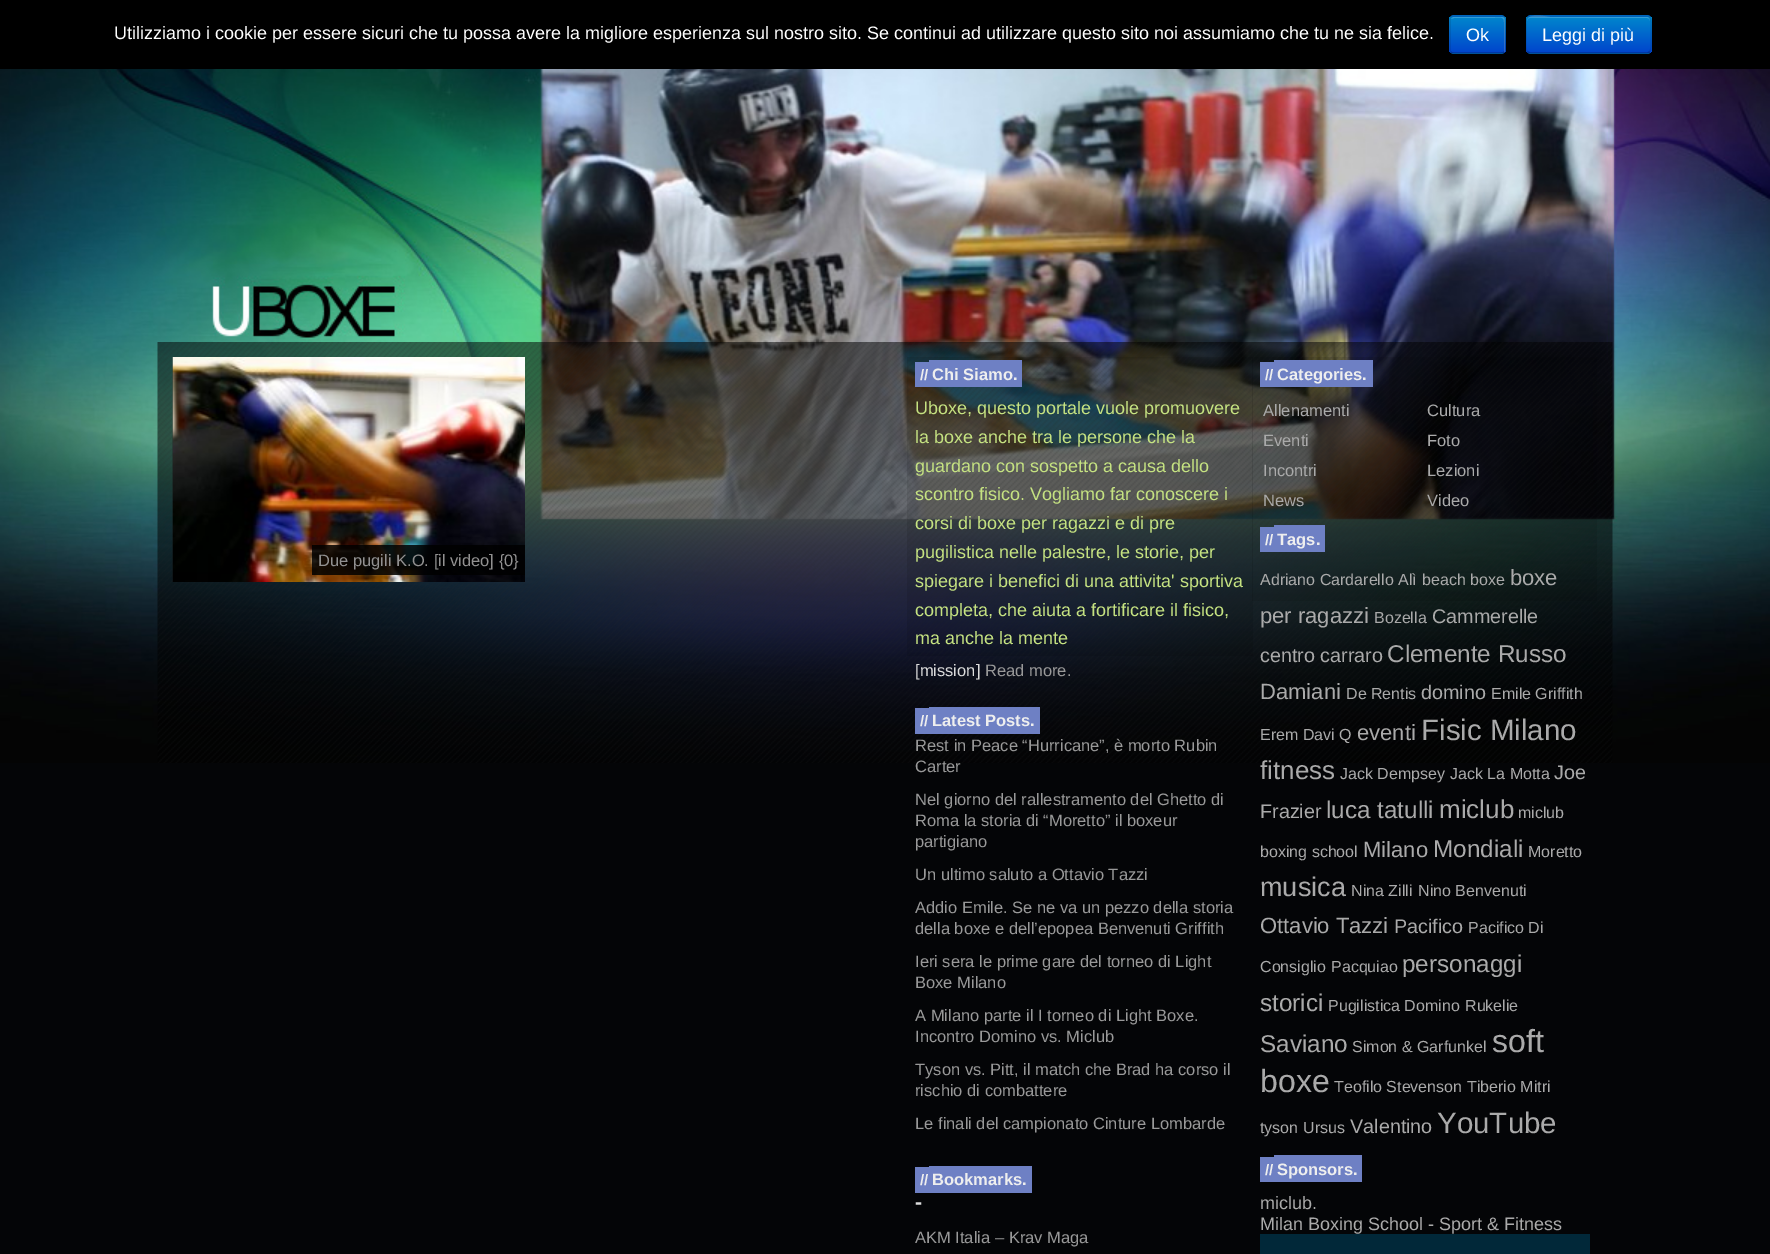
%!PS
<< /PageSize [1770 1254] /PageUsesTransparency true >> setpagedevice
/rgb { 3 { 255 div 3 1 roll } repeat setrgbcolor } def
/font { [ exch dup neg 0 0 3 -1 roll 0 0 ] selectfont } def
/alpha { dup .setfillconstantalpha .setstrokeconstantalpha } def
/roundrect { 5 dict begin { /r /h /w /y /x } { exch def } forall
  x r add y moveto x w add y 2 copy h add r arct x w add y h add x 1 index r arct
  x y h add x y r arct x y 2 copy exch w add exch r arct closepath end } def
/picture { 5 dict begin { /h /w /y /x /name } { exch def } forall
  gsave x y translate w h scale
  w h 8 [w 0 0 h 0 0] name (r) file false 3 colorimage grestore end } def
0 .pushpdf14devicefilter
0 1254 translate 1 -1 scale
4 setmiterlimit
4 5 7 rgb
0 0 1770 1254 rectfill
(img/1.rgb) 0 69 1770 694 picture
0 0 0 rgb
0 0 1770 69 rectfill
0 109 204 rgb
1449 15 57 39 5 roundrect fill
gsave
1449 15 57 39 5 roundrect clip newpath
gsave 1449 17 moveto 1506 17 lineto 1506 53 lineto 1449 53 lineto closepath clip newpath
<< /ShadingType 2 /ColorSpace /DeviceRGB /Coords [1478 16 1478 53] /Extend [true true] /Function << /FunctionType 2 /Domain [0 1] /C0 [0 0.533 0.8] /C1 [0 0.267 0.8] /N 1 >> >> shfill grestore
grestore
0.2 alpha
255 255 255 rgb
1454 18 moveto 1486 18 lineto 1506 18 1504 14 1504 31 curveto 1504 52 lineto 1505 52 1505 51 1505 50 curveto 1505 20 lineto 1505 18 1504 17 1502 17 curveto 1454 17 lineto 1453 17 1452 18 1451 19 curveto closepath fill
0.25 alpha
0 0 0 rgb
1.5 setlinewidth
1504 52 moveto 1503.5 53 1502.5 53 1501.5 53 curveto 1453.5 53 lineto 1452.5 53 1451.5 53 1451 52 curveto stroke
0.1 alpha
1451 52 moveto 1450 51.5 1450 50.5 1450 49.5 curveto 1450 19.5 lineto 1450 18.5 1450 17.5 1451 17 curveto 1451.5 16 1452.5 16 1453.5 16 curveto 1501.5 16 lineto 1502.5 16 1503.5 16 1504 17 curveto 1505 17.5 1505 18.5 1505 19.5 curveto 1505 49.5 lineto 1505 50.5 1505 51.5 1504 52 curveto stroke
1 alpha
0 109 204 rgb
1526 15 126 39 5 roundrect fill
gsave
1526 15 126 39 5 roundrect clip newpath
gsave 1526 17 moveto 1652 17 lineto 1652 53 lineto 1526 53 lineto closepath clip newpath
<< /ShadingType 2 /ColorSpace /DeviceRGB /Coords [1589 16 1589 53] /Extend [true true] /Function << /FunctionType 2 /Domain [0 1] /C0 [0 0.533 0.8] /C1 [0 0.267 0.8] /N 1 >> >> shfill grestore
grestore
0.2 alpha
255 255 255 rgb
1530 18 moveto 1647 18 lineto 1649 18 1650 19 1650 21 curveto 1650 19 1649 17 1647 17 curveto 1550 17 lineto 1549 17 1527 12 1527 21 curveto 1527 19 1528 18 1530 18 curveto closepath fill
0.25 alpha
0 0 0 rgb
1649.5 52 moveto 1647.5 53 lineto 1549.5 53 lineto 1530 53 lineto 1527.5 52 lineto stroke
0.1 alpha
1527.5 52 moveto 1525 49.5 1526 42 1526 39.5 curveto 1526 24.5 lineto 1526 21.5 1525.5 16 1530 16 curveto 1647 16 lineto 1651.5 16 1651 21.5 1651 24.5 curveto 1651 39.5 lineto 1651 42 1652 49.5 1649.5 52 curveto stroke
1 alpha
(img/2.rgb) 157 342 1456 421 picture
(img/3.rgb) 172 357 1 225 picture
(img/4.rgb) 172 357 353 225 picture
0.85 alpha
[
  [312 545 213 30 0 0 0]
] { aload pop rgb rectfill } forall
0.1 alpha
[
  [907 357 346 299 0 0 0]
] { aload pop rgb rectfill } forall
1 alpha
[
  [915 362 14 25 110 128 196]
  [929 360 93 27 110 128 196]
  [915 708 14 26 110 128 196]
  [929 707 111 27 110 128 196]
  [915 1167 14 26 110 128 196]
  [929 1166 103 27 110 128 196]
] { aload pop rgb rectfill } forall
0.1 alpha
[
  [1252 357 345 244 0 0 0]
] { aload pop rgb rectfill } forall
1 alpha
[
  [1260 362 14 25 110 128 196]
  [1274 360 99 27 110 128 196]
  [1260 527 14 25 110 128 196]
  [1274 525 51 27 110 128 196]
  [1260 1157 14 25 110 128 196]
  [1274 1155 88 27 110 128 196]
  [1260 1234 330 20 1 40 57]
] { aload pop rgb rectfill } forall
/LiberationSans-Regular 18 font
255 255 255 rgb
[
  [(Utilizziamo i cookie per essere sicuri che tu possa avere la migliore esperienza sul nostro sito. Se continui ad utilizzare questo sito noi assumiamo che tu ne sia felice.) 114 39]
  [(Ok) 1466 41]
  [(Leggi di più) 1542 41]
] { aload pop moveto show } forall
/LiberationSans-Regular 16.5 font
146 145 145 rgb
318 566 moveto (Due pugili K.O. [il video] {0}) show
/LiberationSans-Bold 15 font
238 238 238 rgb
920 380 moveto (//) show
/LiberationSans-Bold 16.5 font
932 380 moveto (Chi Siamo.) show
/LiberationSans-Regular 18 font
197 226 129 rgb
[
  [(Uboxe, questo portale vuole promuovere) 915 414]
  [(la boxe anche tra le persone che la) 915 443]
  [(guardano con sospetto a causa dello) 915 472]
  [(scontro fisico. Vogliamo far conoscere i) 915 500]
  [(corsi di boxe per ragazzi e di pre) 915 529]
  [(pugilistica nelle palestre, le storie, per) 915 558]
  [(spiegare i benefici di una attivita' sportiva) 915 587]
  [(completa, che aiuta a fortificare il fisico,) 915 616]
  [(ma anche la mente) 915 644]
] { aload pop moveto show } forall
/LiberationSans-Regular 16.5 font
221 221 221 rgb
915 676 moveto ([mission]) show
153 153 153 rgb
985 676 moveto (Read more.) show
/LiberationSans-Bold 15 font
238 238 238 rgb
920 726 moveto (//) show
/LiberationSans-Bold 16.5 font
932 726 moveto (Latest Posts.) show
/LiberationSans-Regular 16.5 font
153 153 153 rgb
[
  [(Rest in Peace “Hurricane”, è morto Rubin) 915 751]
  [(Carter) 915 772]
  [(Nel giorno del rallestramento del Ghetto di) 915 805]
  [(Roma la storia di “Moretto” il boxeur) 915 826]
  [(partigiano) 915 847]
  [(Un ultimo saluto a Ottavio Tazzi) 915 880]
  [(Addio Emile. Se ne va un pezzo della storia) 915 913]
  [(della boxe e dell’epopea Benvenuti Griffith) 915 934]
  [(Ieri sera le prime gare del torneo di Light) 915 967]
  [(Boxe Milano) 915 988]
  [(A Milano parte il I torneo di Light Boxe.) 915 1021]
  [(Incontro Domino vs. Miclub) 915 1042]
  [(Tyson vs. Pitt, il match che Brad ha corso il) 915 1075]
  [(rischio di combattere) 915 1096]
  [(Le finali del campionato Cinture Lombarde) 915 1129]
] { aload pop moveto show } forall
/LiberationSans-Bold 15 font
238 238 238 rgb
920 1185 moveto (//) show
/LiberationSans-Bold 16.5 font
932 1185 moveto (Bookmarks.) show
/LiberationSans-Bold 21 font
221 221 221 rgb
915 1209 moveto (-) show
/LiberationSans-Regular 16.5 font
153 153 153 rgb
915 1243 moveto (AKM Italia – Krav Maga) show
/LiberationSans-Bold 15 font
238 238 238 rgb
1265 380 moveto (//) show
/LiberationSans-Bold 16.5 font
1277 380 moveto (Categories.) show
/LiberationSans-Regular 16.5 font
170 170 170 rgb
[
  [(Allenamenti) 1263 416]
  [(Cultura) 1427 416]
  [(Eventi) 1263 446]
  [(Foto) 1427 446]
  [(Incontri) 1263 476]
  [(Lezioni) 1427 476]
  [(News) 1263 506]
  [(Video) 1427 506]
] { aload pop moveto show } forall
/LiberationSans-Bold 15 font
238 238 238 rgb
1265 545 moveto (//) show
/LiberationSans-Bold 16.5 font
1277 545 moveto (Tags.) show
/LiberationSans-Regular 16 font
170 170 170 rgb
[
  [(Adriano Cardarello) 1260 585]
  [(Alì) 1398 585]
  [(beach boxe) 1422 585]
] { aload pop moveto show } forall
/LiberationSans-Regular 22 font
1510 585 moveto (boxe) show
1260 623 moveto (per ragazzi) show
/LiberationSans-Regular 16 font
1374 623 moveto (Bozella) show
/LiberationSans-Regular 19.75 font
1432 623 moveto (Cammerelle) show
1260 662 moveto (centro carraro) show
/LiberationSans-Regular 24.25 font
1387 662 moveto (Clemente Russo) show
/LiberationSans-Regular 22 font
1260 699 moveto (Damiani) show
/LiberationSans-Regular 16 font
1346 699 moveto (De Rentis) show
/LiberationSans-Regular 19.75 font
1421 699 moveto (domino) show
/LiberationSans-Regular 16 font
1491 699 moveto (Emile Griffith) show
1260 740 moveto (Erem Davi Q) show
/LiberationSans-Regular 22 font
1357 740 moveto (eventi) show
/LiberationSans-Regular 29.5 font
1421 740 moveto (Fisic Milano) show
/LiberationSans-Regular 26 font
1260 779 moveto (fitness) show
/LiberationSans-Regular 16 font
1340 779 moveto (Jack Dempsey) show
1450 779 moveto (Jack La Motta) show
/LiberationSans-Regular 19.75 font
1554 779 moveto (Joe) show
1260 818 moveto (Frazier) show
/LiberationSans-Regular 24.25 font
1326 818 moveto (luca tatulli) show
/LiberationSans-Regular 26 font
1439 818 moveto (miclub) show
/LiberationSans-Regular 16 font
1518 818 moveto (miclub) show
1260 857 moveto (boxing school) show
/LiberationSans-Regular 22 font
1363 857 moveto (Milano) show
/LiberationSans-Regular 24.25 font
1433 857 moveto (Mondiali) show
/LiberationSans-Regular 16 font
1528 857 moveto (Moretto) show
/LiberationSans-Regular 27 font
1260 896 moveto (musica) show
/LiberationSans-Regular 16 font
1351 896 moveto (Nina Zilli) show
1418 896 moveto (Nino Benvenuti) show
/LiberationSans-Regular 22 font
1260 933 moveto (Ottavio Tazzi) show
/LiberationSans-Regular 19.75 font
1394 933 moveto (Pacifico) show
/LiberationSans-Regular 16 font
[
  [(Pacifico Di) 1468 933]
  [(Consiglio) 1260 972]
  [(Pacquiao) 1331 972]
] { aload pop moveto show } forall
/LiberationSans-Regular 24.25 font
1402 972 moveto (personaggi) show
1260 1011 moveto (storici) show
/LiberationSans-Regular 16 font
1328 1011 moveto (Pugilistica Domino) show
1465 1011 moveto (Rukelie) show
/LiberationSans-Regular 24.25 font
1260 1052 moveto (Saviano) show
/LiberationSans-Regular 16 font
1352 1052 moveto (Simon & Garfunkel) show
/LiberationSans-Regular 32 font
1492 1052 moveto (soft) show
1260 1092 moveto (boxe) show
/LiberationSans-Regular 16 font
[
  [(Teofilo Stevenson) 1334 1092]
  [(Tiberio Mitri) 1467 1092]
  [(tyson) 1260 1133]
  [(Ursus) 1303 1133]
] { aload pop moveto show } forall
/LiberationSans-Regular 19.75 font
1350 1133 moveto (Valentino) show
/LiberationSans-Regular 29.5 font
1437 1133 moveto (YouTube) show
/LiberationSans-Bold 15 font
238 238 238 rgb
1265 1175 moveto (//) show
/LiberationSans-Bold 16.5 font
1277 1175 moveto (Sponsors.) show
/LiberationSans-Regular 18 font
170 170 170 rgb
1260 1209 moveto (miclub.) show
1260 1230 moveto (Milan Boxing School - Sport & Fitness) show
.poppdf14devicefilter showpage
